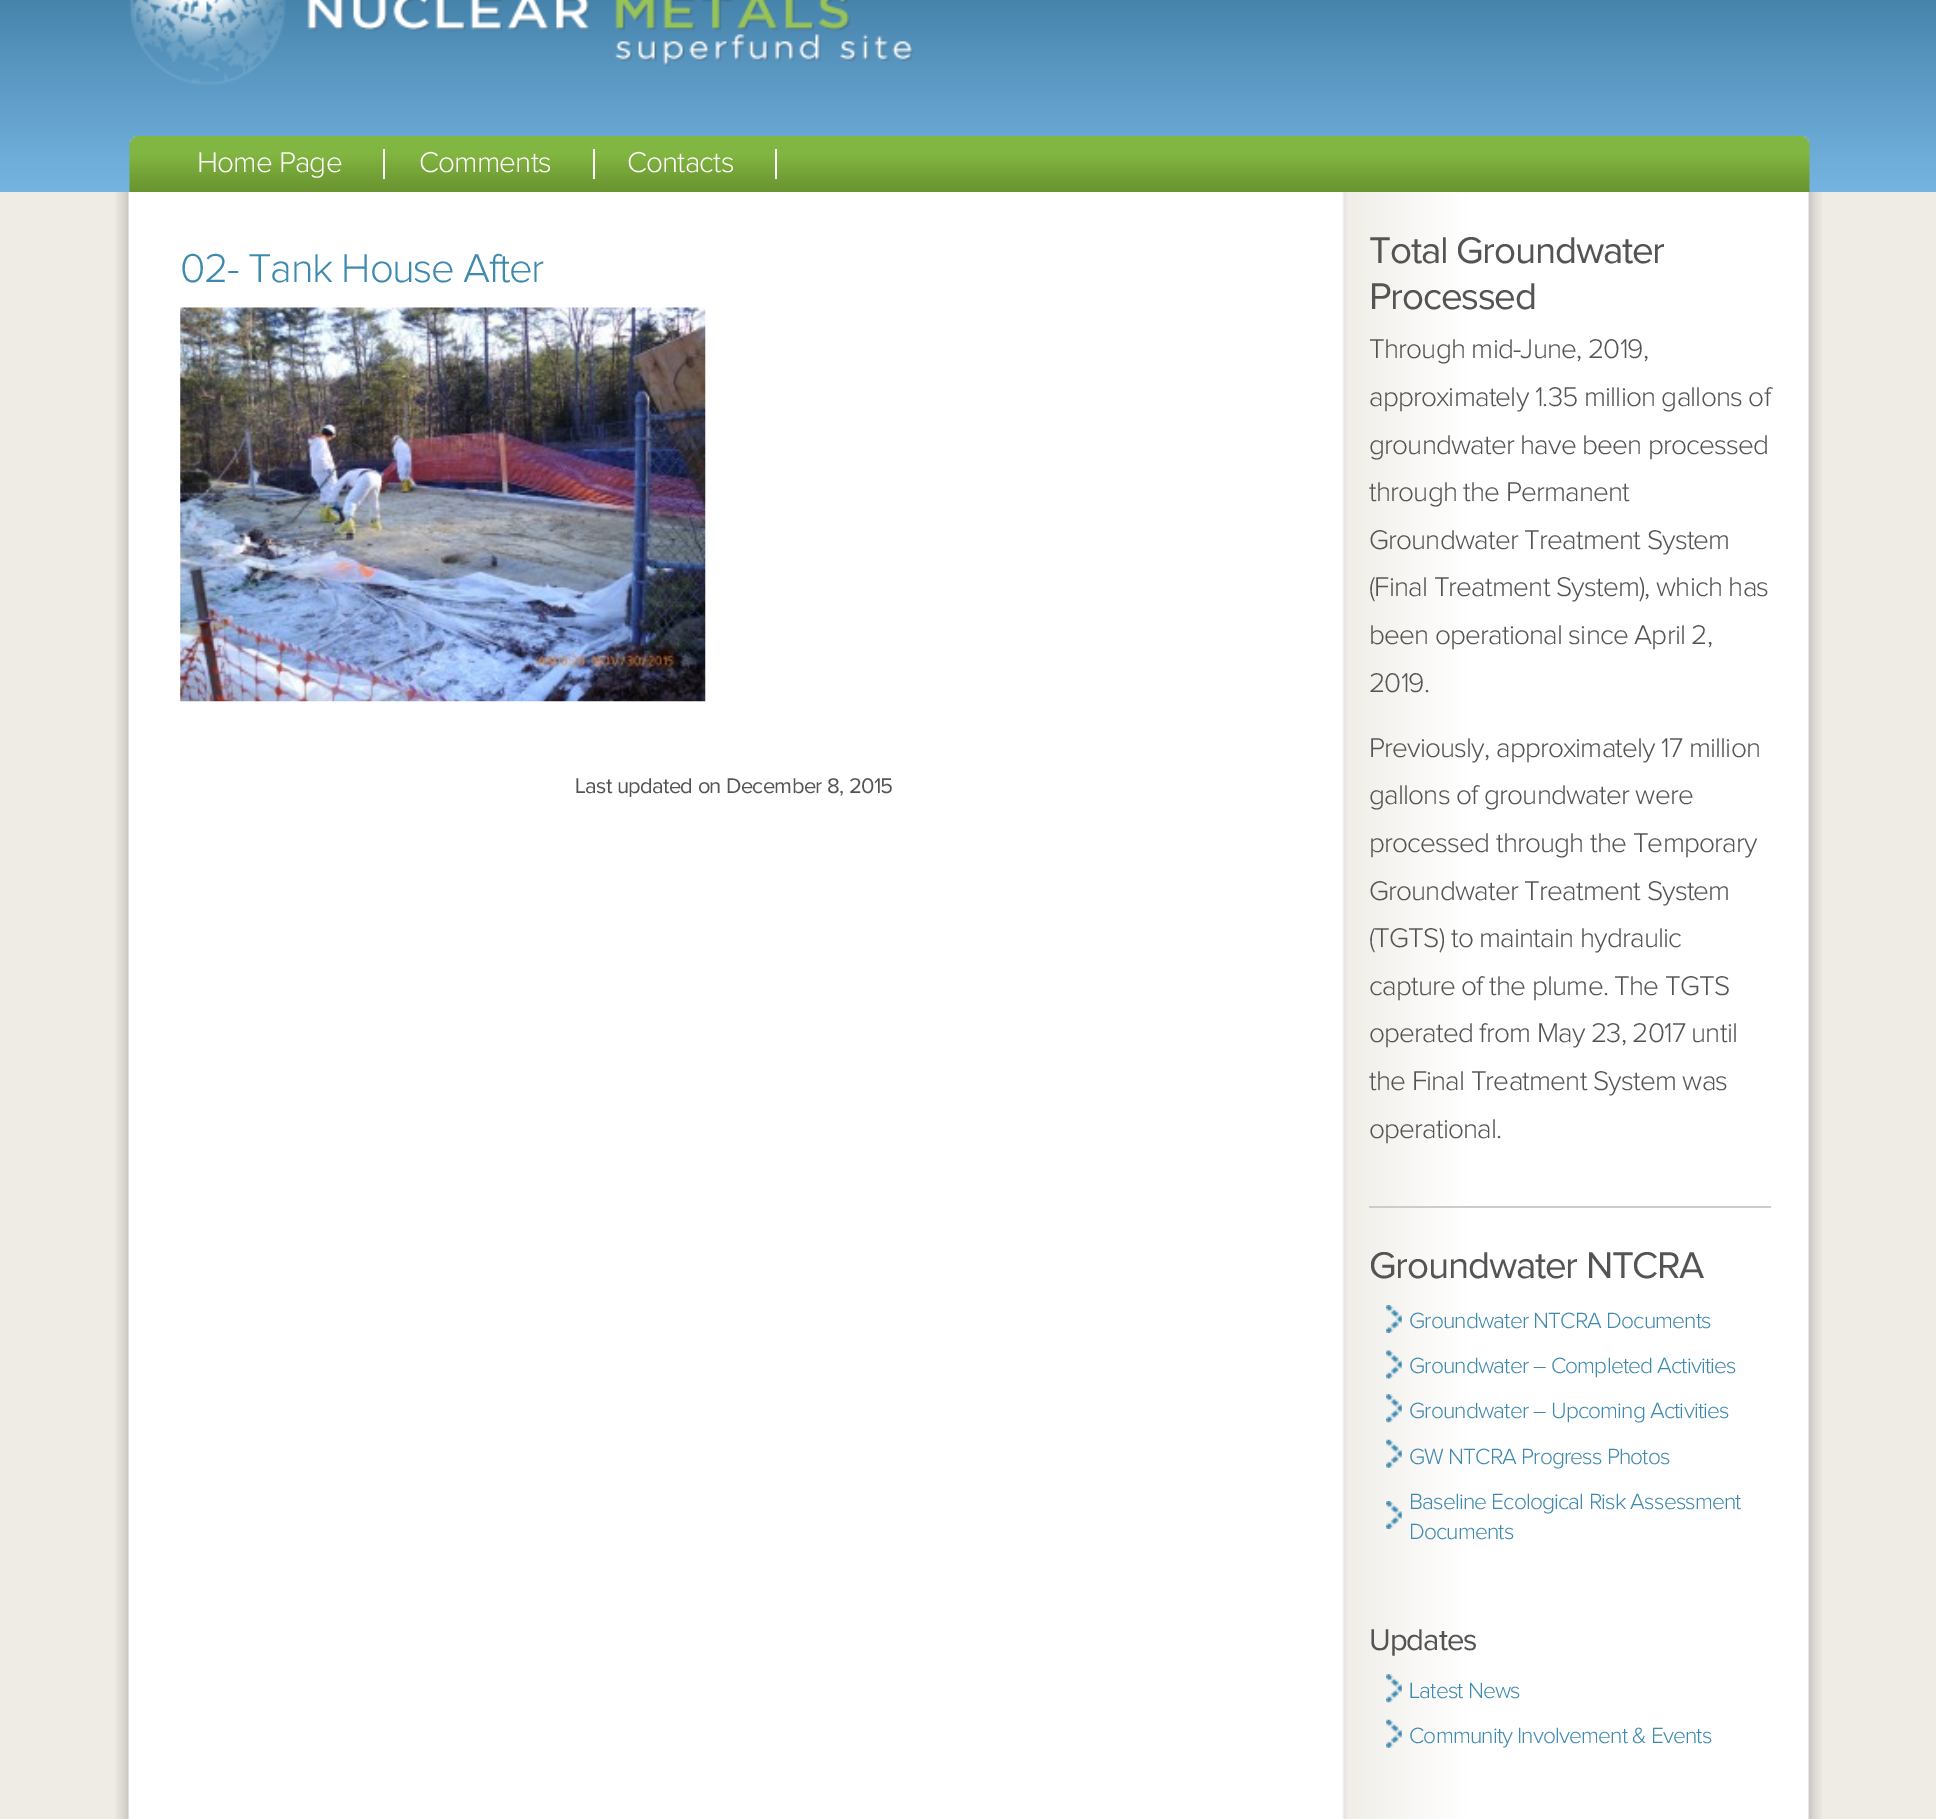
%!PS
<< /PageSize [1936 1819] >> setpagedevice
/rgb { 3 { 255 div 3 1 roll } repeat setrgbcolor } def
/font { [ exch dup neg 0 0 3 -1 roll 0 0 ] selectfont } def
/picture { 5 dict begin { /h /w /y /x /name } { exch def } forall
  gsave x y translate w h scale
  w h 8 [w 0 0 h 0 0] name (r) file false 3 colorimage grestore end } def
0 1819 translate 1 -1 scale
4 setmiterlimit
239 236 230 rgb
0 0 1936 1819 rectfill
(img/1.rgb) 0 0 1936 192 picture
(img/2.rgb) 129 0 785 85 picture
(img/3.rgb) 129 136 1681 56 picture
[
  [383 149 2 30 255 255 255]
  [593 149 2 30 255 255 255]
  [775 149 2 30 255 255 255]
] { aload pop rgb rectfill } forall
(img/4.rgb) 115 192 1707 1627 picture
(img/5.rgb) 180 307 526 395 picture
204 204 204 rgb
1369 1206 402 2 rectfill
(img/6.rgb) 1386 1305 16 28 picture
(img/7.rgb) 1386 1350 16 29 picture
(img/8.rgb) 1386 1394 16 29 picture
(img/9.rgb) 1386 1439 16 29 picture
(img/6.rgb) 1386 1501 16 28 picture
(img/10.rgb) 1386 1674 16 29 picture
(img/9.rgb) 1386 1719 16 29 picture
/ProximaNova-Light 29.75 font
255 255 255 rgb
197 172 moveto -0.85 0 (Home Page) ashow
419 172 moveto -0.85 0 (Comments) ashow
627 172 moveto -0.85 0 (Contacts) ashow
/ProximaNova-Light 41.75 font
62 137 175 rgb
180 282 moveto -1.25 0 (02- Tank House After) ashow
/ProximaNova-Regular 22 font
84 84 84 rgb
575 793 moveto -0.65 0 (Last updated on December 8, 2015) ashow
/ProximaNova-Regular 38.5 font
1369 263 moveto -1.2 0 (Total Groundwater) ashow
1369 309 moveto -1.2 0 (Processed) ashow
/ProximaNova-Light 28 font
1369 358 moveto -0.85 0 (Through mid-June, 2019,) ashow
1369 406 moveto -0.85 0 (approximately 1.35 million gallons of) ashow
1369 454 moveto -0.85 0 (groundwater have been processed) ashow
1369 501 moveto -0.85 0 (through the Permanent) ashow
1369 549 moveto -0.85 0 (Groundwater Treatment System) ashow
1369 596 moveto -0.85 0 (\(Final Treatment System\), which has) ashow
1369 644 moveto -0.85 0 (been operational since April 2,) ashow
1369 692 moveto -0.85 0 (2019.) ashow
1369 757 moveto -0.85 0 (Previously, approximately 17 million) ashow
1369 804 moveto -0.85 0 (gallons of groundwater were) ashow
1369 852 moveto -0.85 0 (processed through the Temporary) ashow
1369 900 moveto -0.85 0 (Groundwater Treatment System) ashow
1369 947 moveto -0.85 0 (\(TGTS\) to maintain hydraulic) ashow
1369 995 moveto -0.85 0 (capture of the plume. The TGTS) ashow
1369 1042 moveto -0.85 0 (operated from May 23, 2017 until) ashow
1369 1090 moveto -0.85 0 (the Final Treatment System was) ashow
1369 1138 moveto -0.85 0 (operational.) ashow
/ProximaNova-Regular 38.5 font
1369 1278 moveto -1.2 0 (Groundwater NTCRA) ashow
/ProximaNova-Light 22.75 font
62 137 175 rgb
1409 1328 moveto -0.85 0 (Groundwater NTCRA Documents) ashow
1409 1373 moveto -0.85 0 (Groundwater – Completed Activities) ashow
1409 1418 moveto -0.85 0 (Groundwater – Upcoming Activities) ashow
1409 1464 moveto -0.85 0 (GW NTCRA Progress Photos) ashow
1409 1509 moveto -0.85 0 (Baseline Ecological Risk Assessment) ashow
1409 1539 moveto -0.85 0 (Documents) ashow
/ProximaNova-Regular 31 font
84 84 84 rgb
1369 1650 moveto -1 0 (Updates) ashow
/ProximaNova-Light 22.75 font
62 137 175 rgb
1409 1698 moveto -0.85 0 (Latest News) ashow
1409 1743 moveto -0.85 0 (Community Involvement & Events) ashow
showpage
